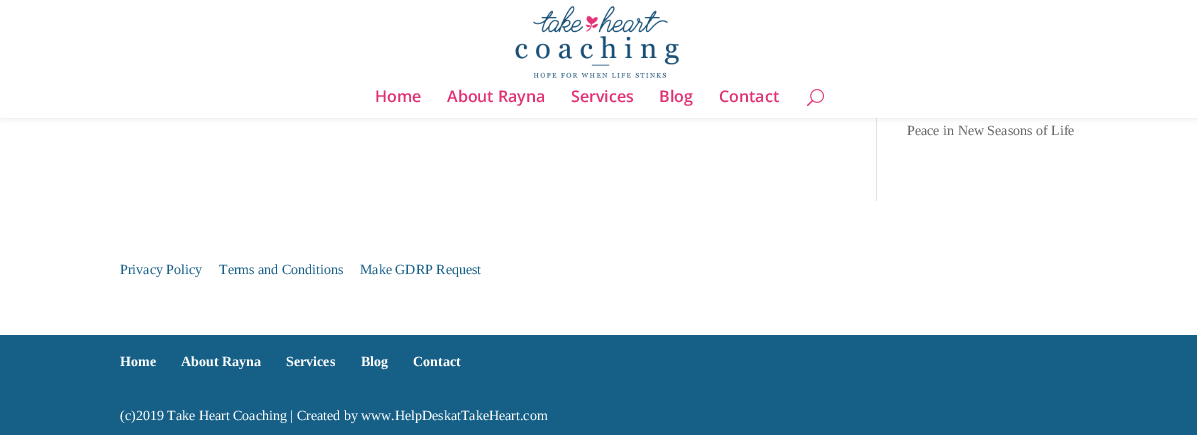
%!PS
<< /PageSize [1197 435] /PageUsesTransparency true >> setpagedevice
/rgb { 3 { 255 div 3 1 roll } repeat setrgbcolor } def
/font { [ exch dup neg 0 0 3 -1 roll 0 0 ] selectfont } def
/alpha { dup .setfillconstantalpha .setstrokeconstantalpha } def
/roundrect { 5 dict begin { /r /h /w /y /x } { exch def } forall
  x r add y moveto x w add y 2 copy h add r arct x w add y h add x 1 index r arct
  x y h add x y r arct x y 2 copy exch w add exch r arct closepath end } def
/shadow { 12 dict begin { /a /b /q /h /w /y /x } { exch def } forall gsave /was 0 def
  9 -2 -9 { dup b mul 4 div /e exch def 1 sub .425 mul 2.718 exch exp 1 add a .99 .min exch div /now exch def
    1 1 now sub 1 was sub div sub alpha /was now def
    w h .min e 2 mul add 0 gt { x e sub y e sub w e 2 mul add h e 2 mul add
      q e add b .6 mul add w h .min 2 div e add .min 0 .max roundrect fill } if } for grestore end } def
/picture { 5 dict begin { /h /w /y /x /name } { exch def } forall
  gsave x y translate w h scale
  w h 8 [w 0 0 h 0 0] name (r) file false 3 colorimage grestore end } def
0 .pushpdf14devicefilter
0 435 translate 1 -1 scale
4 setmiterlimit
255 255 255 rgb
0 0 1197 435 rectfill
226 226 226 rgb
876 118 1 83 rectfill
0 0 0 rgb
0 0 1197 118 0 3.5 0.1 shadow
255 255 255 rgb
0 0 1197 118 rectfill
(img/1.rgb) 515 5 164 73 picture
(img/2.rgb) 807 89 17 18 picture
22 96 136 rgb
0 335 1197 100 rectfill
/OpenSans-SemiBold 16 font
225 49 117 rgb
[
  [(Home) 375 102]
  [(About Rayna) 447 102]
  [(Services) 571 102]
  [(Blog) 659 102]
  [(Contact) 719 102]
] { aload pop moveto show } forall
/LiberationSerif-Regular 14 font
102 102 102 rgb
907 135 moveto (Peace in New Seasons of Life) show
22 96 136 rgb
[
  [(Privacy Policy) 120 274]
  [(Terms and Conditions) 219 274]
  [(Make GDRP Request) 360 274]
] { aload pop moveto show } forall
/LiberationSerif-Bold 14 font
255 255 255 rgb
[
  [(Home) 120 366]
  [(About Rayna) 181 366]
  [(Services) 286 366]
  [(Blog) 361 366]
  [(Contact) 413 366]
] { aload pop moveto show } forall
/LiberationSerif-Regular 14 font
120 420 moveto (\(c\)2019 Take Heart Coaching | Created by www.HelpDeskatTakeHeart.com) show
.poppdf14devicefilter showpage
